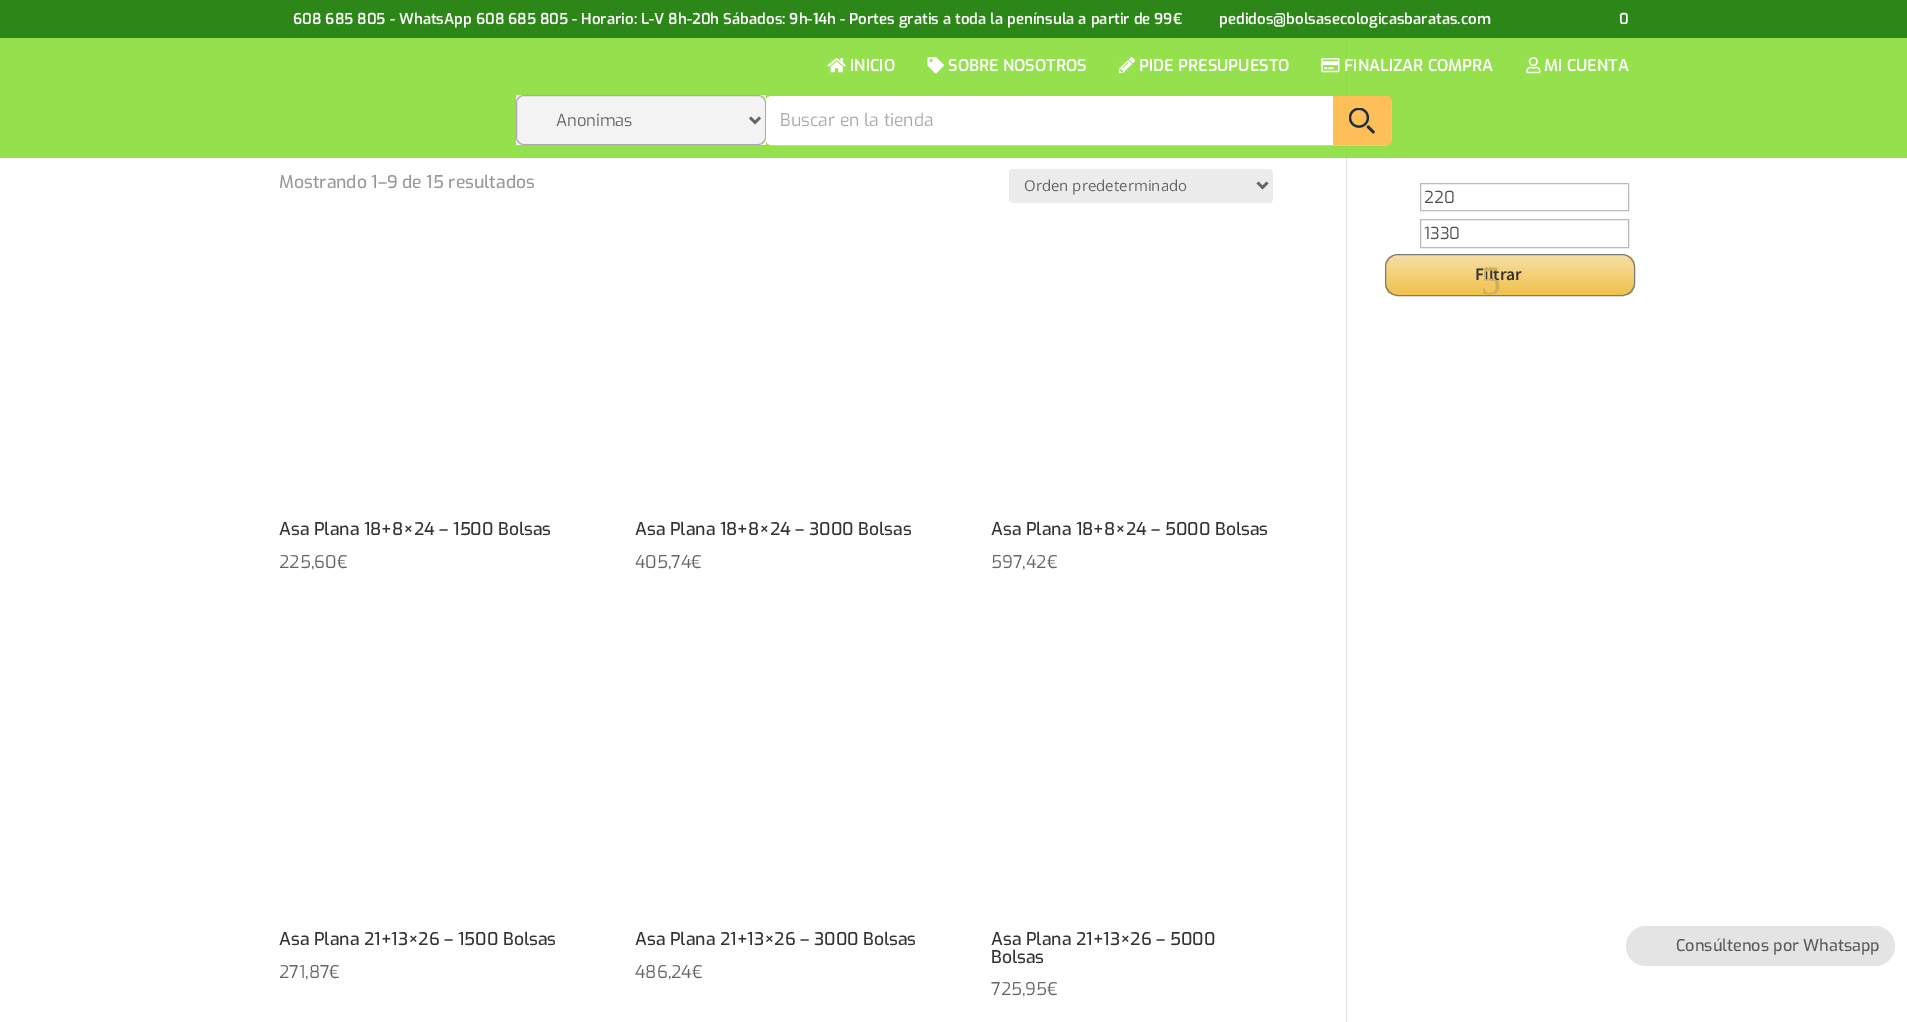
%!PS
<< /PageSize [1907 1022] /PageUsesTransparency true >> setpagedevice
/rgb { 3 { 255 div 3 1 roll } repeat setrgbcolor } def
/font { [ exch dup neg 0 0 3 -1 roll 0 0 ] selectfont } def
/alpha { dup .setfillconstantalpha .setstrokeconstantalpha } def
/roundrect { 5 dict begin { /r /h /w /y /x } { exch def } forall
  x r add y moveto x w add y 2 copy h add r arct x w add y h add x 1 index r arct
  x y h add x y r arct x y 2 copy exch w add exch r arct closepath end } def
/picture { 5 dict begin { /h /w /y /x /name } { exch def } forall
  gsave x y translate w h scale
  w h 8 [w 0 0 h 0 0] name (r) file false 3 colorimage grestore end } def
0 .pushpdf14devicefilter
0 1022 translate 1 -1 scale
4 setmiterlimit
255 255 255 rgb
0 0 1907 1022 rectfill
[
  [0 0 1907 38 44 135 24]
  [1346 38 1 984 226 226 226]
] { aload pop rgb rectfill } forall
0.81 alpha
[
  [0 38 1907 120 124 218 36]
] { aload pop rgb rectfill } forall
1 alpha
(img/1.rgb) 827 58 19 15 picture
(img/2.rgb) 927 57 17 17 picture
(img/3.rgb) 1118 57 17 17 picture
(img/4.rgb) 1321 58 19 15 picture
(img/5.rgb) 1526 57 15 17 picture
243 243 243 rgb
516 95 250 50 rectfill
170 170 170 rgb
516.5 95.5 249 49 7.5 roundrect stroke
102 102 102 rgb
2.5 setlinewidth
750 117.5 moveto 755 122.5 lineto 760 117.5 lineto stroke
255 255 255 rgb
766.5 96.5 624 48 4.5 roundrect gsave fill grestore
1 setlinewidth
stroke
255 191 88 rgb
1333 96 moveto 1387 96 lineto 1389 96 1391 98 1391 100 curveto 1391 141 lineto 1391 143 1389 145 1387 145 curveto 1333 145 lineto closepath fill
(img/6.rgb) 1349 108 26 26 picture
236 236 236 rgb
1009 169 264 34 4 roundrect fill
102 102 102 rgb
2.5 setlinewidth
1257.5 182.5 moveto 1262.5 187.5 lineto 1267.5 182.5 lineto stroke
187 187 187 rgb
1 setlinewidth
1420.5 183.5 208 27 rectstroke
1420.5 219.5 208 28 rectstroke
gsave
1385 254 250 42 13 roundrect clip newpath
gsave 1385 255 moveto 1635 255 lineto 1635 295 lineto 1385 295 lineto closepath clip newpath
<< /ShadingType 2 /ColorSpace /DeviceRGB /Coords [1510 255 1510 295] /Extend [true true] /Function << /FunctionType 2 /Domain [0 1] /C0 [0.969 0.875 0.647] /C1 [0.941 0.757 0.294] /N 1 >> >> shfill grestore
grestore
122 122 122 rgb
1385.5 254.5 249 41 12.5 roundrect stroke
228 228 228 rgb
1626 926 269 40 20 roundrect fill
/Exo-SemiBold 15 font
255 255 255 rgb
[
  [(608 685 805 - WhatsApp 608 685 805 - Horario: L-V 8h-20h Sábados: 9h-14h - Portes gratis a toda la península a partir de 99€) 293 24]
  [(pedidos@bolsasecologicasbaratas.com) 1219 24]
  [(0) 1619 24]
] { aload pop moveto show } forall
/Exo-SemiBold 16.25 font
[
  [(INICIO) 850 71]
  [(SOBRE NOSOTROS) 948 71]
  [(PIDE PRESUPUESTO) 1139 71]
  [(FINALIZAR COMPRA) 1344 71]
  [(MI CUENTA) 1544 71]
] { aload pop moveto show } forall
/Exo-Regular 16.5 font
102 102 102 rgb
556 126 moveto (Anonimas) show
/Exo-Regular 17.5 font
170 170 170 rgb
780 126 moveto (Buscar en la tienda) show
/Exo-Medium 17.5 font
153 153 153 rgb
279 188 moveto (Mostrando 1–9 de 15 resultados) show
/OpenSans-Regular 15 font
102 102 102 rgb
1024 191 moveto (Orden predeterminado) show
/Exo-Medium 17.5 font
51 51 51 rgb
279 535 moveto (Asa Plana 18+8×24 – 1500 Bolsas) show
/Exo-Regular 17.5 font
102 102 102 rgb
279 568 moveto (225,60€) show
/Exo-Medium 17.5 font
51 51 51 rgb
635 535 moveto (Asa Plana 18+8×24 – 3000 Bolsas) show
/Exo-Regular 17.5 font
102 102 102 rgb
635 568 moveto (405,74€) show
/Exo-Medium 17.5 font
51 51 51 rgb
991 535 moveto (Asa Plana 18+8×24 – 5000 Bolsas) show
/Exo-Regular 17.5 font
102 102 102 rgb
991 568 moveto (597,42€) show
/Exo-Medium 17.5 font
51 51 51 rgb
279 945 moveto (Asa Plana 21+13×26 – 1500 Bolsas) show
/Exo-Regular 17.5 font
102 102 102 rgb
279 978 moveto (271,87€) show
/Exo-Medium 17.5 font
51 51 51 rgb
635 945 moveto (Asa Plana 21+13×26 – 3000 Bolsas) show
/Exo-Regular 17.5 font
102 102 102 rgb
635 978 moveto (486,24€) show
/Exo-Medium 17.5 font
51 51 51 rgb
991 945 moveto (Asa Plana 21+13×26 – 5000) show
991 963 moveto (Bolsas) show
/Exo-Regular 17.5 font
102 102 102 rgb
991 995 moveto (725,95€) show
/Exo-Regular 16.5 font
78 78 78 rgb
1424 203 moveto (220) show
1424 239 moveto (1330) show
/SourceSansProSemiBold-SemiBold 17.5 font
51 51 51 rgb
1475 280 moveto (Filtrar) show
/LiberationSerif-Regular 40 font
207 174 94 rgb
1481 294 moveto (5) show
/Exo-Medium 16.25 font
91 91 91 rgb
1676 951 moveto (Consúltenos por Whatsapp) show
.poppdf14devicefilter showpage
